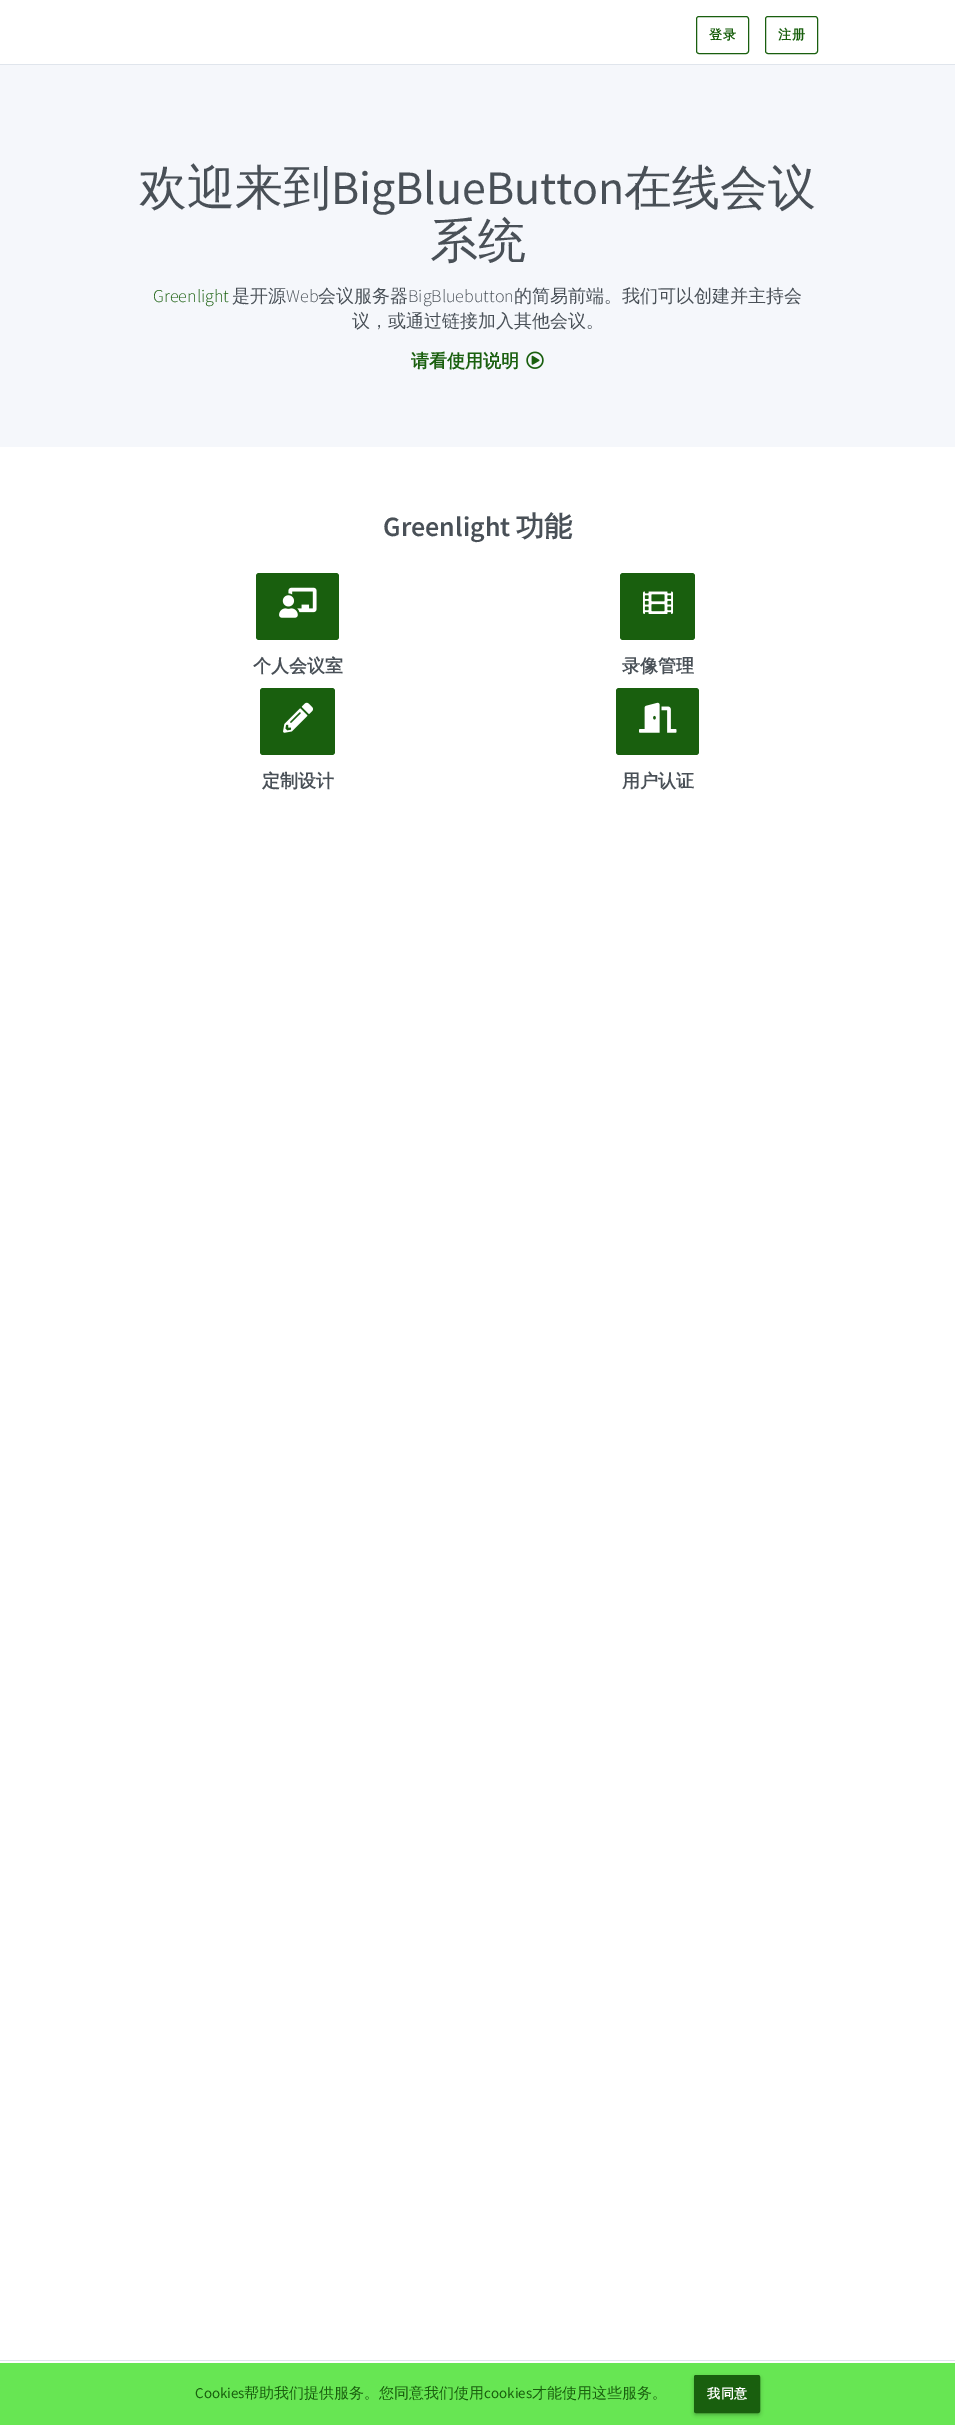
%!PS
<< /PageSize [955 2425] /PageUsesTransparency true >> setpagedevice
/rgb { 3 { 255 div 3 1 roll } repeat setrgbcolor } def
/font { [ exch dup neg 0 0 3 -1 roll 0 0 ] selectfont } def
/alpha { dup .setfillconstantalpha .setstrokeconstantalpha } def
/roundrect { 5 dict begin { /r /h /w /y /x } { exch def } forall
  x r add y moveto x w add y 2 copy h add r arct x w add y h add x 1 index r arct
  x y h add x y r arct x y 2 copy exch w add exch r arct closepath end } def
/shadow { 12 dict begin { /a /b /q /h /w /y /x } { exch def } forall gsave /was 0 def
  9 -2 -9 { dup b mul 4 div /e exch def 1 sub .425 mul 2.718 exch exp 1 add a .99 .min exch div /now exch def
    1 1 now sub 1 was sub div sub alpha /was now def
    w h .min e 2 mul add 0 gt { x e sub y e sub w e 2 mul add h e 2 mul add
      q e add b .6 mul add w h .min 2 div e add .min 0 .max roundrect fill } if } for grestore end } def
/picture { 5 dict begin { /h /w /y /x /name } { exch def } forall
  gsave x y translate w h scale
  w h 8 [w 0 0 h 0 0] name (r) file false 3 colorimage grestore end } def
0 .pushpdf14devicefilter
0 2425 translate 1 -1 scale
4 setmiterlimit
255 255 255 rgb
0 0 955 2425 rectfill
224 229 236 rgb
0 64 955 1 rectfill
25 95 14 rgb
696.5 16.5 52 37 2.5 roundrect stroke
765.5 16.5 52 37 2.5 roundrect stroke
245 247 251 rgb
0 65 955 382 rectfill
(img/1.rgb) 526 351 18 18 picture
25 95 14 rgb
256 573 83 67 3 roundrect fill
(img/2.rgb) 279 587 38 31 picture
620 573 75 67 3 roundrect fill
(img/3.rgb) 643 591 30 23 picture
260 688 75 67 3 roundrect fill
(img/4.rgb) 283 702 30 31 picture
616 688 83 67 3 roundrect fill
(img/5.rgb) 639 702 38 31 picture
224 229 236 rgb
0 2360 955 1 rectfill
103 230 83 rgb
0 2363 955 62 rectfill
0 0 0 rgb
694 2377 66 38 2 2 0.25 shadow
25 95 14 rgb
694.5 2375.5 65 37 1.5 roundrect gsave fill grestore
stroke
/WenQuanYiZenHei-Bold 13 font
709 39 moveto 0.5 0 (登录) ashow
778 39 moveto 0.5 0 (注册) ashow
/WenQuanYiZenHei-Medium 48 font
73 80 87 rgb
139 204 moveto (欢迎来到) show
/SourceSansPro-Regular 48 font
331 204 moveto (BigBlueButton) show
/WenQuanYiZenHei-Medium 48 font
624 204 moveto (在线会议) show
430 257 moveto (系统) show
/SourceSansPro-Light 18 font
25 95 14 rgb
153 302 moveto (Greenlight) show
/WenQuanYiZenHei-Medium 18 font
73 80 87 rgb
232 302 moveto (是开源) show
/SourceSansPro-Light 18 font
286 302 moveto (Web) show
/WenQuanYiZenHei-Medium 18 font
318 302 moveto (会议服务器) show
/SourceSansPro-Light 18 font
408 302 moveto (BigBluebutton) show
/WenQuanYiZenHei-Medium 18 font
514 302 moveto (的简易前端。我们可以创建并主持会) show
352 327 moveto (议，或通过链接加入其他会议。) show
/WenQuanYiZenHei-Bold 18 font
25 95 14 rgb
411 367 moveto (请看使用说明) show
/SourceSansPro-SemiBold 28 font
73 80 87 rgb
383 536 moveto (Greenlight) show
/WenQuanYiZenHei-Bold 28 font
516 536 moveto (功能) show
/WenQuanYiZenHei-Bold 18 font
[
  [(个人会议室) 253 672]
  [(录像管理) 622 672]
  [(定制设计) 262 787]
  [(用户认证) 622 787]
] { aload pop moveto show } forall
/SourceSansPro-Regular 15 font
25 95 14 rgb
195 2398 moveto (Cookies) show
/WenQuanYiZenHei-Medium 15 font
244 2398 moveto (帮助我们提供服务。您同意我们使用) show
/SourceSansPro-Regular 15 font
484 2398 moveto (cookies) show
/WenQuanYiZenHei-Medium 15 font
532 2398 moveto (才能使用这些服务。) show
/WenQuanYiZenHei-Bold 13 font
255 255 255 rgb
707 2398 moveto 0.5 0 (我同意) ashow
.poppdf14devicefilter showpage
